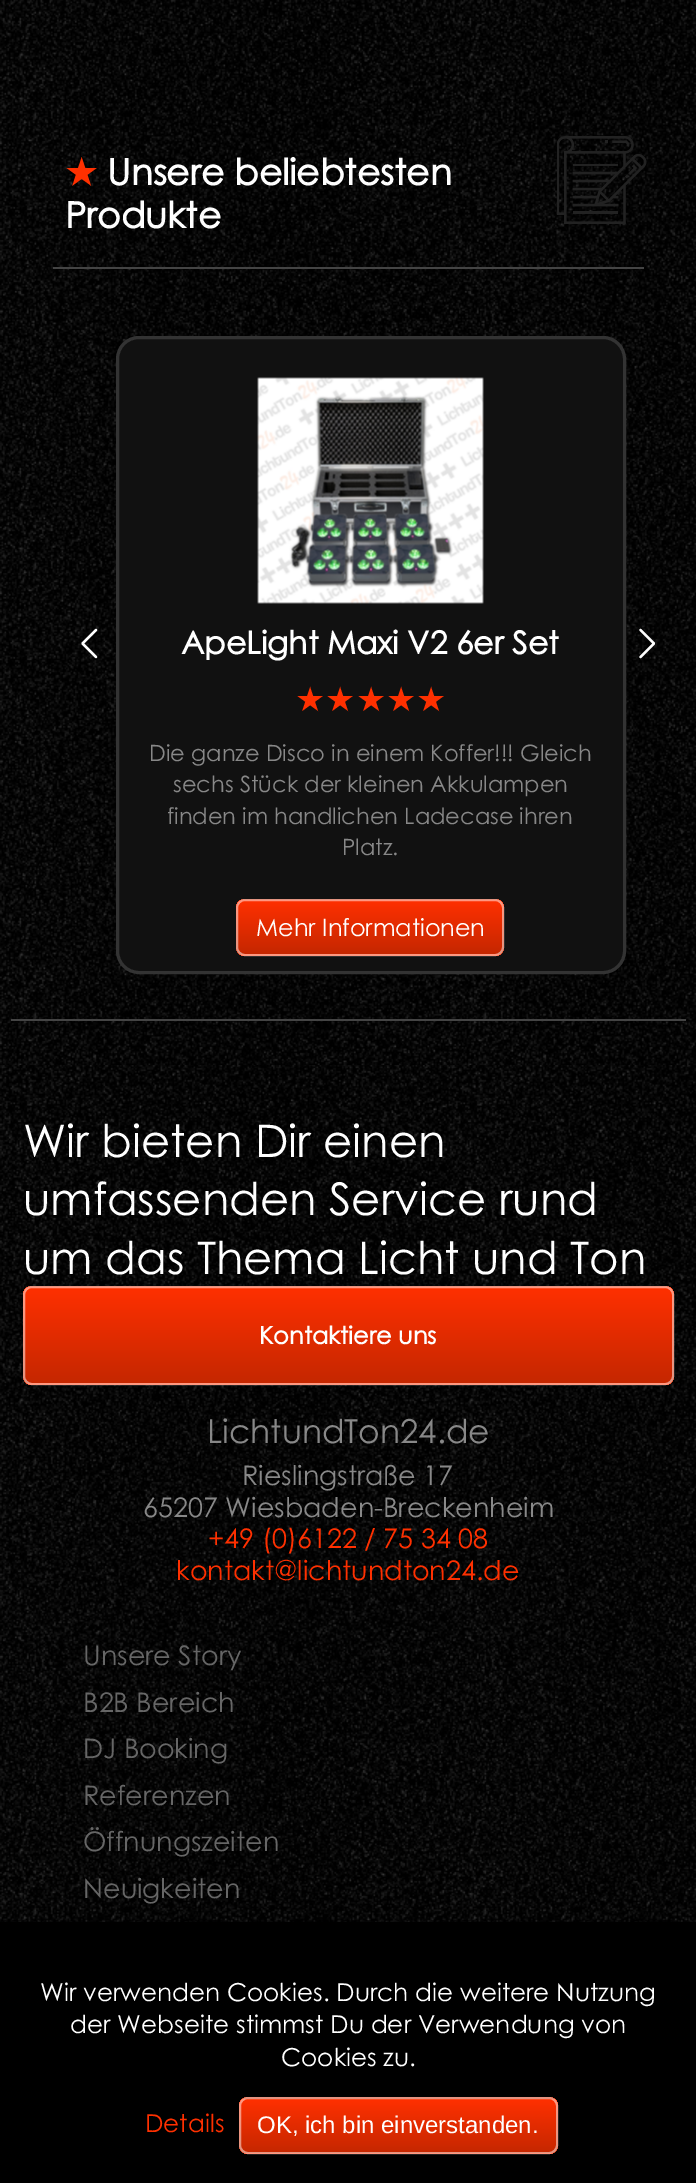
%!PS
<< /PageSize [696 2183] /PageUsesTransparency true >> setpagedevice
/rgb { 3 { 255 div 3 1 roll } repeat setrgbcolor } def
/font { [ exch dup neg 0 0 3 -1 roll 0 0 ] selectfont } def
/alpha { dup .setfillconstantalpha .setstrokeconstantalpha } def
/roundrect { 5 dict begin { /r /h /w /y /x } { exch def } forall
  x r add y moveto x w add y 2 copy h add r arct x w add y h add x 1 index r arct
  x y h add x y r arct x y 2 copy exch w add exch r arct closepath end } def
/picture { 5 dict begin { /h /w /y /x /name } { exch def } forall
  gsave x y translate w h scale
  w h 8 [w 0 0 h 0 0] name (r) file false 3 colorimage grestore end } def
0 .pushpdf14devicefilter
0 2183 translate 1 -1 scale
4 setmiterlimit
0 0 0 rgb
0 0 696 2183 rectfill
(img/1.rgb) 0 0 696 1065 picture
68 68 68 rgb
53 267 591 2 rectfill
(img/2.rgb) 557 136 90 88 picture
11 1019 675 2 rectfill
255 255 255 rgb
2.2 setlinewidth
1 setlinecap
2 setlinejoin
96 630 moveto 82.5 643.5 lineto 96 657 lineto stroke
640.5 630 moveto 654 643.5 lineto 640.5 657 lineto stroke
17 17 17 rgb
117.5 337.5 507 635 21.5 roundrect gsave fill grestore
51 51 51 rgb
3 setlinewidth
0 setlinecap
0 setlinejoin
stroke
(img/3.rgb) 257 377 227 227 picture
gsave
236 899 268 57 9 roundrect clip newpath
gsave 236 899 moveto 504 899 lineto 504 900 lineto 236 900 lineto closepath clip newpath
<< /ShadingType 2 /ColorSpace /DeviceRGB /Coords [370 846 370 900] /Extend [true true] /Function << /FunctionType 2 /Domain [0 1] /C0 [1 0.188 0] /C1 [0.773 0.153 0] /N 1 >> >> shfill grestore
gsave 236 900 moveto 504 900 lineto 504 954 lineto 236 954 lineto closepath clip newpath
<< /ShadingType 2 /ColorSpace /DeviceRGB /Coords [370 900 370 954] /Extend [true true] /Function << /FunctionType 2 /Domain [0 1] /C0 [1 0.188 0] /C1 [0.773 0.153 0] /N 1 >> >> shfill grestore
gsave 236 954 moveto 504 954 lineto 504 956 lineto 236 956 lineto closepath clip newpath
<< /ShadingType 2 /ColorSpace /DeviceRGB /Coords [370 954 370 1008] /Extend [true true] /Function << /FunctionType 2 /Domain [0 1] /C0 [1 0.188 0] /C1 [0.773 0.153 0] /N 1 >> >> shfill grestore
grestore
0.5 alpha
255 255 255 rgb
2 setlinewidth
237 900 266 55 8 roundrect stroke
1 alpha
(img/4.rgb) 0 1065 696 857 picture
gsave
23 1286 651 99 9 roundrect clip newpath
gsave 23 1286 moveto 674 1286 lineto 674 1287 lineto 23 1287 lineto closepath clip newpath
<< /ShadingType 2 /ColorSpace /DeviceRGB /Coords [348 1191 348 1287] /Extend [true true] /Function << /FunctionType 2 /Domain [0 1] /C0 [1 0.188 0] /C1 [0.773 0.153 0] /N 1 >> >> shfill grestore
gsave 23 1287 moveto 674 1287 lineto 674 1383 lineto 23 1383 lineto closepath clip newpath
<< /ShadingType 2 /ColorSpace /DeviceRGB /Coords [348 1287 348 1383] /Extend [true true] /Function << /FunctionType 2 /Domain [0 1] /C0 [1 0.188 0] /C1 [0.773 0.153 0] /N 1 >> >> shfill grestore
gsave 23 1383 moveto 674 1383 lineto 674 1385 lineto 23 1385 lineto closepath clip newpath
<< /ShadingType 2 /ColorSpace /DeviceRGB /Coords [348 1383 348 1479] /Extend [true true] /Function << /FunctionType 2 /Domain [0 1] /C0 [1 0.188 0] /C1 [0.773 0.153 0] /N 1 >> >> shfill grestore
grestore
0.5 alpha
24 1287 649 97 8 roundrect stroke
gsave
239 2097 319 57 9 roundrect clip newpath
1 alpha
gsave 239 2097 moveto 558 2097 lineto 558 2099 lineto 239 2099 lineto closepath clip newpath
<< /ShadingType 2 /ColorSpace /DeviceRGB /Coords [398 2045 398 2099] /Extend [true true] /Function << /FunctionType 2 /Domain [0 1] /C0 [1 0.188 0] /C1 [0.773 0.153 0] /N 1 >> >> shfill grestore
gsave 239 2099 moveto 558 2099 lineto 558 2153 lineto 239 2153 lineto closepath clip newpath
<< /ShadingType 2 /ColorSpace /DeviceRGB /Coords [398 2099 398 2153] /Extend [true true] /Function << /FunctionType 2 /Domain [0 1] /C0 [1 0.188 0] /C1 [0.773 0.153 0] /N 1 >> >> shfill grestore
gsave 239 2153 moveto 558 2153 lineto 558 2154 lineto 239 2154 lineto closepath clip newpath
<< /ShadingType 2 /ColorSpace /DeviceRGB /Coords [398 2153 398 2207] /Extend [true true] /Function << /FunctionType 2 /Domain [0 1] /C0 [1 0.188 0] /C1 [0.773 0.153 0] /N 1 >> >> shfill grestore
grestore
240 2098 317 55 8 roundrect stroke
/DejaVuSans-Bold 36 font
1 alpha
255 48 0 rgb
65 185 moveto (★) show
/CenturyGothic-Bold 36 font
255 255 255 rgb
107 185 moveto (Unsere beliebtesten) show
65 228 moveto (Produkte) show
/CenturyGothic-Bold 31.5 font
181 654 moveto (ApeLight Maxi V2 6er Set) show
/DejaVuSans-Regular 33.75 font
255 48 0 rgb
295 711 moveto (★★★★★) show
/CenturyGothic-Regular 22.5 font
136 136 136 rgb
[
  [(Die ganze Disco in einem Koffer!!! Gleich) 149 761]
  [(sechs Stück der kleinen Akkulampen) 173 792]
  [(finden im handlichen Ladecase ihren) 167 824]
  [(Platz.) 342 855]
] { aload pop moveto show } forall
/CenturyGothic-Regular 24 font
255 255 255 rgb
256 936 moveto (Mehr Informationen) show
/CenturyGothic-Regular 45 font
[
  [(Wir bieten Dir einen) 23 1157]
  [(umfassenden Service rund) 23 1215]
  [(um das Thema Licht und Ton) 23 1274]
] { aload pop moveto show } forall
/CenturyGothic-Bold 24 font
259 1344 moveto (Kontaktiere uns) show
/CenturyGothic-Regular 33 font
136 136 136 rgb
207 1443 moveto (LichtundTon24.de) show
/CenturyGothic-Regular 27 font
242 1485 moveto (Rieslingstraße 17) show
143 1517 moveto (65207 Wiesbaden-Breckenheim) show
255 48 0 rgb
208 1548 moveto (+49 \(0\)6122 / 75 34 08) show
176 1580 moveto (kontakt@lichtundton24.de) show
102 102 102 rgb
[
  [(Unsere Story) 83 1665]
  [(B2B Bereich) 83 1712]
  [(DJ Booking) 83 1758]
  [(Referenzen) 83 1805]
  [(Öffnungszeiten) 83 1851]
  [(Neuigkeiten) 83 1898]
] { aload pop moveto show } forall
/CenturyGothic-Regular 24.75 font
255 255 255 rgb
[
  [(Wir verwenden Cookies. Durch die weitere Nutzung) 40 2001]
  [(der Webseite stimmst Du der Verwendung von) 70 2033]
  [(Cookies zu.) 281 2066]
] { aload pop moveto show } forall
255 48 0 rgb
145 2132 moveto (Details) show
/LiberationSans-Regular 24 font
255 255 255 rgb
257 2133 moveto (OK, ich bin einverstanden.) show
.poppdf14devicefilter showpage
